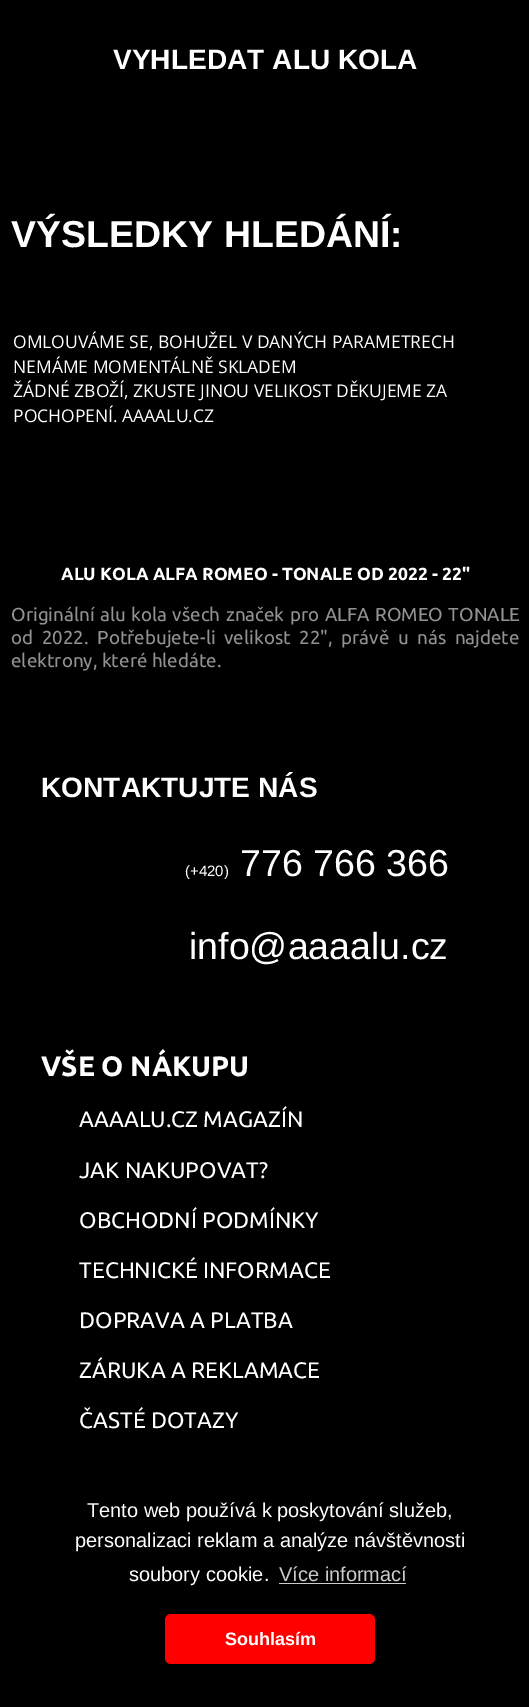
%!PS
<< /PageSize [529 1707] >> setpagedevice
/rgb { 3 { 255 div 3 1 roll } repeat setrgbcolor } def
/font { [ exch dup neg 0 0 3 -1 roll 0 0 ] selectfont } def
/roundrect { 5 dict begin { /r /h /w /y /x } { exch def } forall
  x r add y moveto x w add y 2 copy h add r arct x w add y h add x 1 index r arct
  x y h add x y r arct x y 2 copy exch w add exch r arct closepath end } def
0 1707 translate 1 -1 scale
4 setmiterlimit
0 0 0 rgb
0 0 529 1707 rectfill
204 204 204 rgb
279 1583 127 1 rectfill
255 0 0 rgb
165 1614 210 50 6 roundrect fill
/LiberationSans-Bold 28.1 font
255 255 255 rgb
113 69 moveto (VYHLEDAT ALU KOLA) show
/LiberationSans-Bold 37.5 font
11 247 moveto (VÝSLEDKY HLEDÁNÍ:) show
/OpenSans-Regular 17.5 font
[
  [(OMLOUVÁME SE, BOHUŽEL V DANÝCH PARAMETRECH) 13 348]
  [(NEMÁME MOMENTÁLNĚ SKLADEM) 13 373]
  [(ŽÁDNÉ ZBOŽÍ, ZKUSTE JINOU VELIKOST DĚKUJEME ZA) 13 397]
  [(POCHOPENÍ. AAAALU.CZ) 13 422]
] { aload pop moveto show } forall
/Ubuntu-Bold 17.5 font
61 580 moveto (ALU KOLA ALFA ROMEO - TONALE OD 2022 - 22") show
/Ubuntu-Regular 18.75 font
146 146 146 rgb
11 621 moveto 1.25 0 32 (Originální alu kola všech značek pro ALFA ROMEO TONALE) widthshow
11 644 moveto 4.25 0 32 (od 2022. Potřebujete-li velikost 22", právě u nás najdete) widthshow
11 667 moveto (elektrony, které hledáte.) show
/LiberationSans-Bold 28.1 font
255 255 255 rgb
41 797 moveto (KONTAKTUJTE NÁS) show
/LiberationSans-Regular 15 font
185 876 moveto (\(+420\)) show
/LiberationSans-Regular 37.5 font
240 876 moveto (776 766 366) show
189 959 moveto (info@aaaalu.cz) show
/Ubuntu-Bold 28.1 font
41 1076 moveto (VŠE O NÁKUPU) show
/Ubuntu-Regular 22.5 font
[
  [(AAAALU.CZ MAGAZÍN) 79 1127]
  [(JAK NAKUPOVAT?) 79 1178]
  [(OBCHODNÍ PODMÍNKY) 79 1228]
  [(TECHNICKÉ INFORMACE) 79 1278]
  [(DOPRAVA A PLATBA) 79 1328]
  [(ZÁRUKA A REKLAMACE) 79 1378]
  [(ČASTÉ DOTAZY) 79 1428]
] { aload pop moveto show } forall
/LiberationSans-Regular 20 font
[
  [(Tento web používá k poskytování služeb,) 87 1517]
  [(personalizaci reklam a analýze návštěvnosti) 75 1547]
  [(soubory cookie.) 129 1581]
] { aload pop moveto show } forall
204 204 204 rgb
279 1581 moveto (Více informací) show
/LiberationSans-Bold 18 font
255 255 255 rgb
225 1645 moveto (Souhlasím) show
showpage
